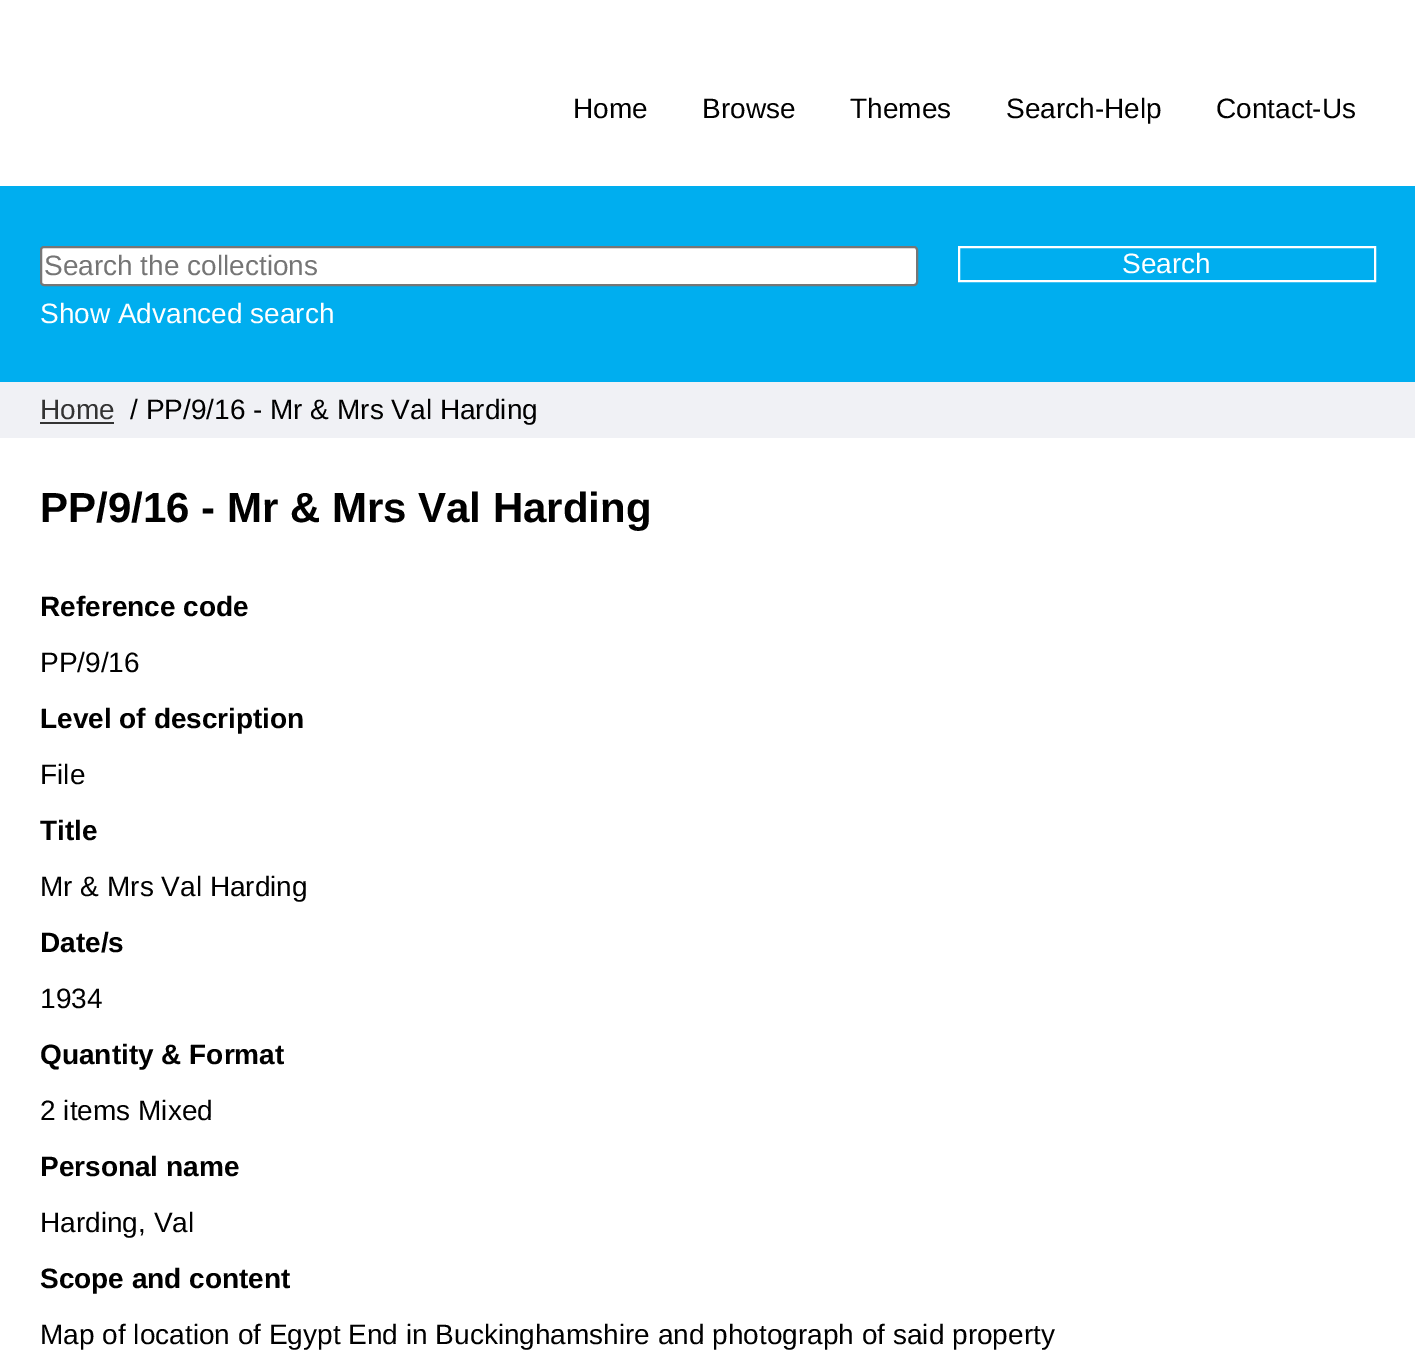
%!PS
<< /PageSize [1415 1356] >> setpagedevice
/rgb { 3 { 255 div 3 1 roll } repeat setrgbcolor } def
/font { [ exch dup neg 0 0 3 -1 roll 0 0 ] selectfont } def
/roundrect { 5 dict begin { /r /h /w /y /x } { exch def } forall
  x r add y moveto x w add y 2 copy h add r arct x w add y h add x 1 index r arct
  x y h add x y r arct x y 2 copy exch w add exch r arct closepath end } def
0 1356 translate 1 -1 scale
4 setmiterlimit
255 255 255 rgb
0 0 1415 1356 rectfill
0 174 239 rgb
0 186 1415 196 rectfill
255 255 255 rgb
41 247 876 38 3 roundrect gsave fill grestore
118 118 118 rgb
2 setlinewidth
stroke
255 255 255 rgb
959 247 416 34 rectstroke
240 241 245 rgb
0 382 1415 56 rectfill
51 51 51 rgb
40 422 74 2 rectfill
/LiberationSans-Regular 28 font
0 0 0 rgb
[
  [(Home) 573 118]
  [(Browse) 702 118]
  [(Themes) 850 118]
  [(Search-Help) 1006 118]
  [(Contact-Us) 1216 118]
] { aload pop moveto show } forall
117 117 117 rgb
44 275 moveto (Search the collections) show
255 255 255 rgb
1122 273 moveto (Search) show
40 323 moveto (Show Advanced search) show
51 51 51 rgb
40 419 moveto (Home) show
0 0 0 rgb
130 419 moveto (/ PP/9/16 - Mr & Mrs Val Harding) show
/LiberationSans-Bold 42 font
40 522 moveto (PP/9/16 - Mr & Mrs Val Harding) show
/LiberationSans-Bold 28 font
40 616 moveto (Reference code) show
/LiberationSans-Regular 28 font
40 672 moveto (PP/9/16) show
/LiberationSans-Bold 28 font
40 728 moveto (Level of description) show
/LiberationSans-Regular 28 font
40 784 moveto (File) show
/LiberationSans-Bold 28 font
40 840 moveto (Title) show
/LiberationSans-Regular 28 font
40 896 moveto (Mr & Mrs Val Harding) show
/LiberationSans-Bold 28 font
40 952 moveto (Date/s) show
/LiberationSans-Regular 28 font
40 1008 moveto (1934) show
/LiberationSans-Bold 28 font
40 1064 moveto (Quantity & Format) show
/LiberationSans-Regular 28 font
40 1120 moveto (2 items Mixed) show
/LiberationSans-Bold 28 font
40 1176 moveto (Personal name) show
/LiberationSans-Regular 28 font
40 1232 moveto (Harding, Val) show
/LiberationSans-Bold 28 font
40 1288 moveto (Scope and content) show
/LiberationSans-Regular 28 font
40 1344 moveto (Map of location of Egypt End in Buckinghamshire and photograph of said property) show
showpage
